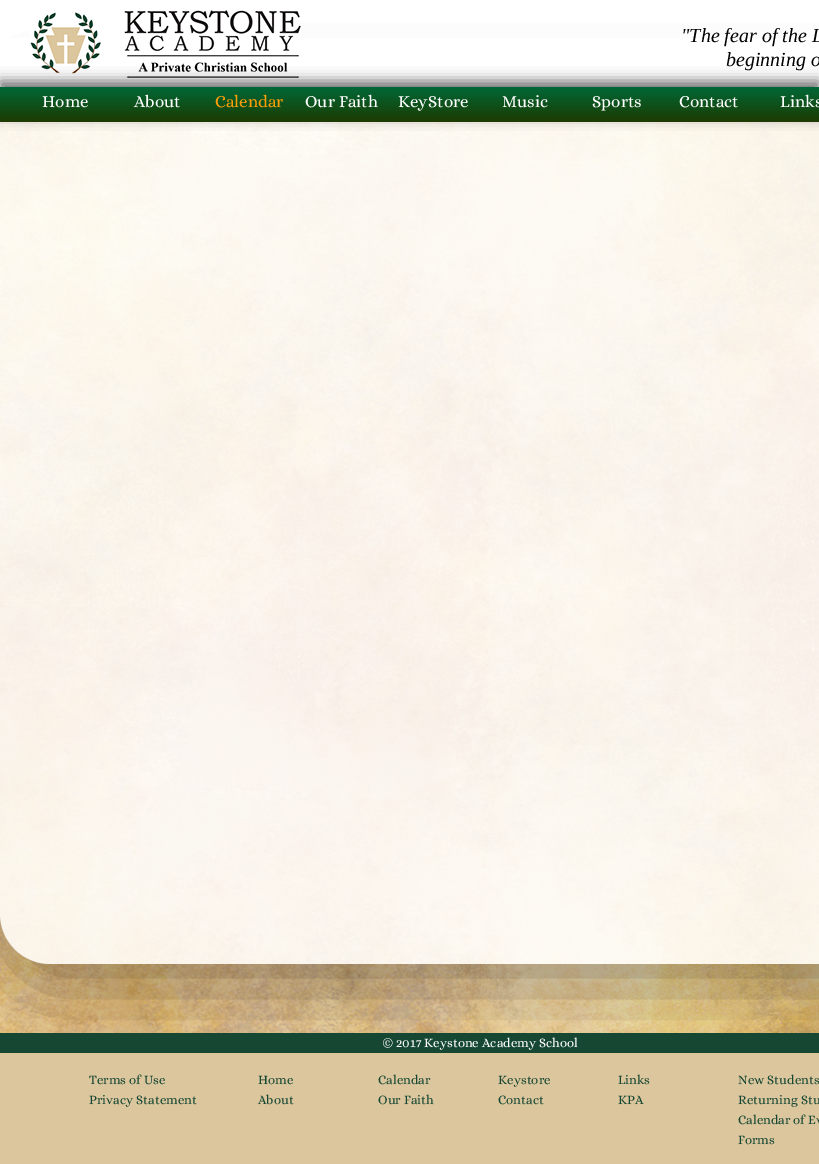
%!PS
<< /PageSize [819 1164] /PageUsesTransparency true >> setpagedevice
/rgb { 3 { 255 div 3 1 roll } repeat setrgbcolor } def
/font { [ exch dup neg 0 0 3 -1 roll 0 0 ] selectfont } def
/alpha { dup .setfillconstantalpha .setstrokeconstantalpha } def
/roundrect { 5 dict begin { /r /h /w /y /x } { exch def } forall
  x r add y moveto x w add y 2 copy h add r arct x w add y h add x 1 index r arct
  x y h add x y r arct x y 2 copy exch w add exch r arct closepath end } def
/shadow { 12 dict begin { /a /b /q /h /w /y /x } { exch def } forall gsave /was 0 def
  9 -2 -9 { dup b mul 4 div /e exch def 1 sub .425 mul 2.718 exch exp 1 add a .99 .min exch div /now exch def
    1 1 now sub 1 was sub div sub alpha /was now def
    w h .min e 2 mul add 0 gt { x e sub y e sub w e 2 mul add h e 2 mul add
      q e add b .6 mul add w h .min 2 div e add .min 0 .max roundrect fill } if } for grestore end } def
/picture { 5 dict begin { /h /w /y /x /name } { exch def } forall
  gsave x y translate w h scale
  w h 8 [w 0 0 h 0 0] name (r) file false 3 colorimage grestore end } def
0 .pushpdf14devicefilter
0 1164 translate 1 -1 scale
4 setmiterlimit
255 255 255 rgb
0 0 819 1164 rectfill
(img/1.rgb) 0 122 819 911 picture
gsave
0 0 moveto 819 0 lineto 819 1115 lineto 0 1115 lineto closepath 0 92 moveto 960 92 lineto 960 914 lineto 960 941.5 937.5 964 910 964 curveto 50 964 lineto 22.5 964 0 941.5 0 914 curveto closepath eoclip newpath
0 0 0 rgb
0 117 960 872 50 41.5 0.35 shadow
grestore
0.83 alpha
0 92 moveto 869 92 lineto 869 914 lineto 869 941.5 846.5 964 819 964 curveto 50 964 lineto 22.5 964 0 941.5 0 914 curveto closepath fill
1 alpha
0 38 819 49 rectfill
(img/2.rgb) 30 10 271 68 picture
0 0 0 rgb
0 81 819 35 0 6.5 0.57 shadow
gsave 0 87 moveto 819 87 lineto 819 122 lineto 0 122 lineto closepath clip newpath
<< /ShadingType 2 /ColorSpace /DeviceRGB /Coords [410 87 410 122] /Extend [true true] /Function << /FunctionType 2 /Domain [0 1] /C0 [0 0.408 0.216] /C1 [0.114 0.227 0] /N 1 >> >> shfill grestore
22 71 51 rgb
0 1033 819 20 rectfill
220 198 157 rgb
0 1053 819 111 rectfill
/LiberationSerif-Italic 20 font
0 0 0 rgb
681 42 moveto ("The fear of the L) show
726 66 moveto (beginning o) show
/Alice-Regular 17 font
255 255 255 rgb
42 107 moveto (Home) show
134 107 moveto (About) show
255 159 8 rgb
215 107 moveto (Calendar) show
255 255 255 rgb
[
  [(Our Faith) 305 107]
  [(KeyStore) 398 107]
  [(Music) 502 107]
  [(Sports) 592 107]
  [(Contact) 679 107]
  [(Links) 780 107]
] { aload pop moveto show } forall
/Alice-Regular 13 font
382 1047 moveto (© 2017 Keystone Academy School) show
22 71 51 rgb
[
  [(Terms of Use) 89 1084]
  [(Privacy Statement) 89 1104]
  [(Home) 258 1084]
  [(About) 258 1104]
  [(Calendar) 378 1084]
  [(Our Faith) 378 1104]
  [(Keystore) 498 1084]
  [(Contact) 498 1104]
  [(Links) 618 1084]
  [(KPA) 618 1104]
  [(New Students) 738 1084]
  [(Returning Stu) 738 1104]
  [(Calendar of Ev) 738 1124]
  [(Forms) 738 1144]
] { aload pop moveto show } forall
.poppdf14devicefilter showpage
